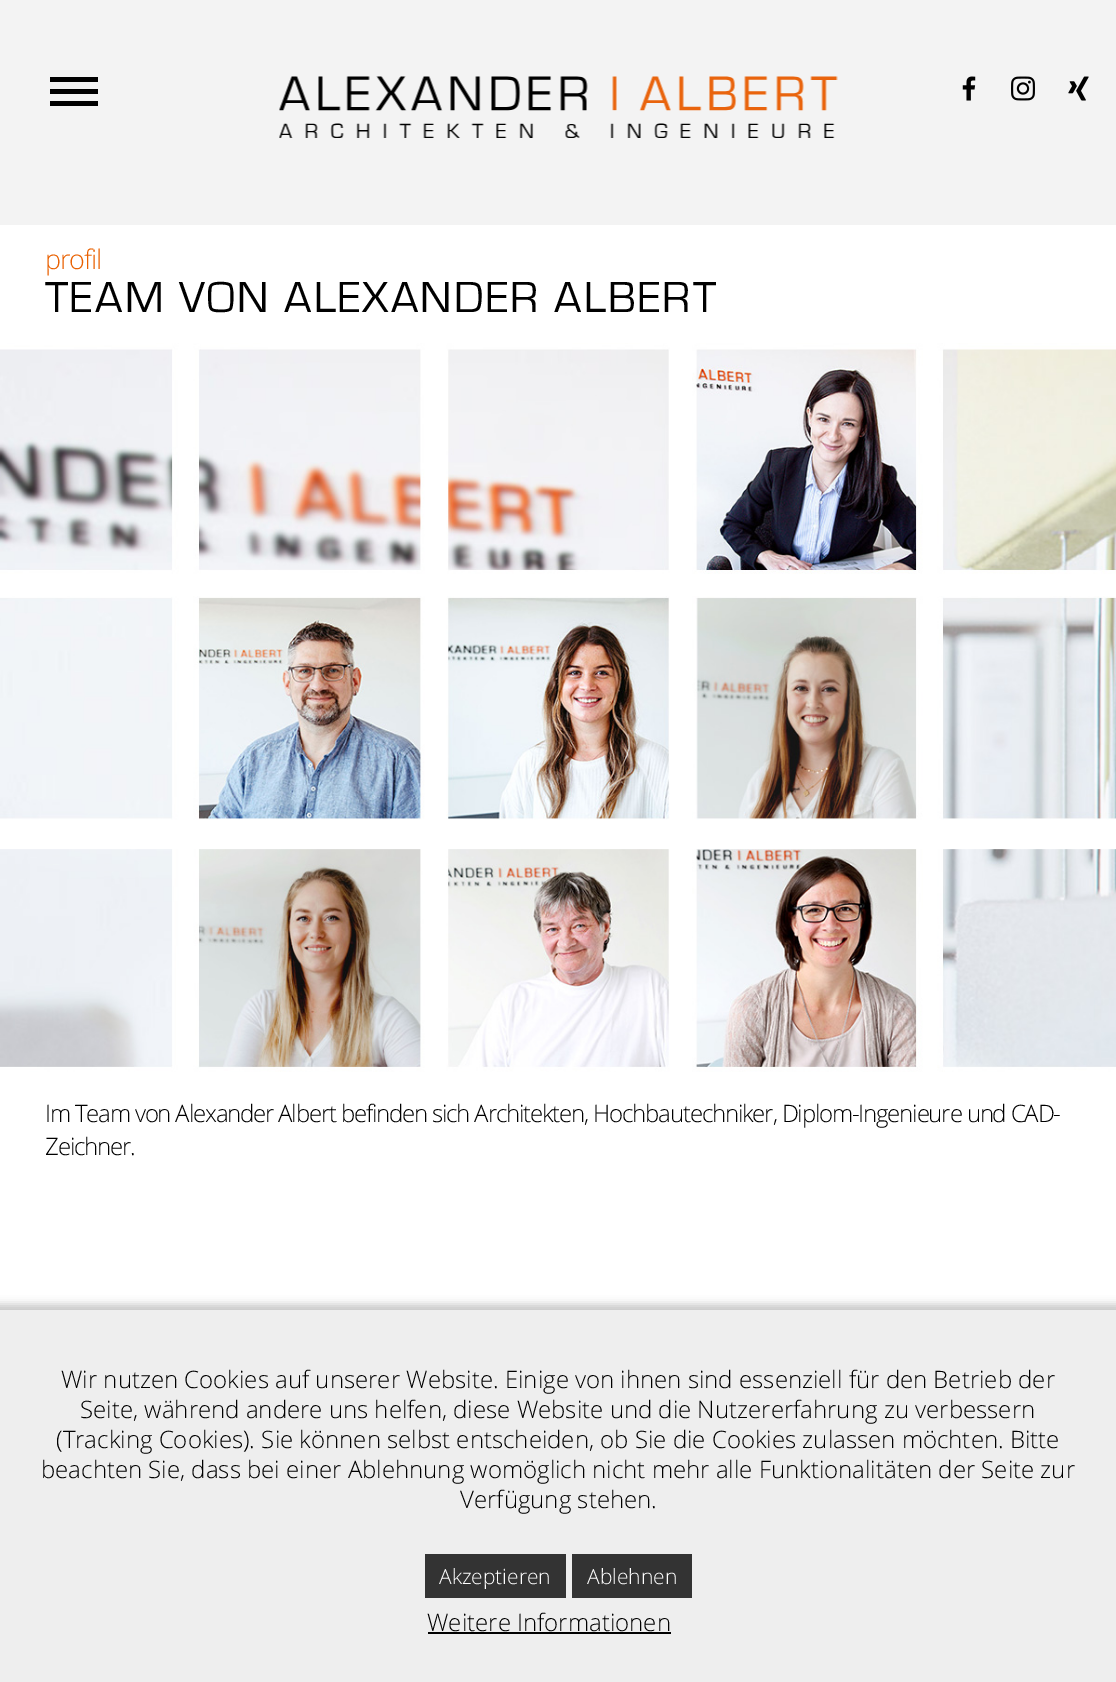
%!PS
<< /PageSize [1116 1682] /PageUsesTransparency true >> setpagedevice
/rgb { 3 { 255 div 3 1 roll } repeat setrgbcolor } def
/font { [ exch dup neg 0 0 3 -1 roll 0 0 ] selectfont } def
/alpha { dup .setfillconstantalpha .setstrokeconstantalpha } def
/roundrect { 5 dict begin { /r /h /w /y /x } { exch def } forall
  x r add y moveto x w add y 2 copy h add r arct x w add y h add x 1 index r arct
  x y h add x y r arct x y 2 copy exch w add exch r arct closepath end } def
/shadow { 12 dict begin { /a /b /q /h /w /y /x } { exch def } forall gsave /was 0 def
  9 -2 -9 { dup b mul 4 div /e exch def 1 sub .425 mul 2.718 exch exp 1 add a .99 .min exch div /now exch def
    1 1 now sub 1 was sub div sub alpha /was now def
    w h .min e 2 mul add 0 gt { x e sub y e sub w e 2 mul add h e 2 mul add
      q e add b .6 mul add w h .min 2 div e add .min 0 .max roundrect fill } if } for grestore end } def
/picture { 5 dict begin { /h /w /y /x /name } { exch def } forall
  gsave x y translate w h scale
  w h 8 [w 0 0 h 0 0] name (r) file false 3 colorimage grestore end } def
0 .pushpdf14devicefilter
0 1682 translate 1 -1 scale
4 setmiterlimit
255 255 255 rgb
0 0 1116 1682 rectfill
[
  [0 0 1116 225 243 243 243]
  [50 77 48 5 0 0 0]
  [50 89 48 5 0 0 0]
  [50 101 48 5 0 0 0]
] { aload pop rgb rectfill } forall
(img/1.rgb) 279 76 559 62 picture
(img/2.rgb) 962 76 14 25 picture
(img/3.rgb) 1011 76 24 25 picture
(img/4.rgb) 1068 76 21 25 picture
(img/5.rgb) 0 343 1116 729 picture
-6 1304 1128 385 0 4 0.21 shadow
[
  [0 1310 1116 372 238 238 238]
  [425 1554 141 44 51 51 51]
  [572 1554 120 44 51 51 51]
  [428 1632 243 2 0 0 0]
] { aload pop rgb rectfill } forall
/OpenSans-Light 27 font
233 96 0 rgb
45 269 moveto -1.2 0 (profil) ashow
/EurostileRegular-Regular 45 font
0 0 0 rgb
45 312 moveto 2.25 0 (TEAM VON ALEXANDER ALBERT) ashow
/OpenSans-Light 24 font
45 1122 moveto -1.2 0 (Im Team von Alexander Albert befinden sich Architekten, Hochbautechniker, Diplom-Ingenieure und CAD-) ashow
45 1155 moveto -1.2 0 (Zeichner.) ashow
[
  [(Wir nutzen Cookies auf unserer Website. Einige von ihnen sind essenziell für den Betrieb der) 61 1388]
  [(Seite, während andere uns helfen, diese Website und die Nutzererfahrung zu verbessern) 80 1418]
  [(\(Tracking Cookies\). Sie können selbst entscheiden, ob Sie die Cookies zulassen möchten. Bitte) 56 1448]
  [(beachten Sie, dass bei einer Ablehnung womöglich nicht mehr alle Funktionalitäten der Seite zur) 41 1478]
  [(Verfügung stehen.) 460 1508]
] { aload pop moveto show } forall
/OpenSans-Light 21 font
255 255 255 rgb
439 1584 moveto (Akzeptieren) show
587 1584 moveto (Ablehnen) show
/OpenSans-Light 24 font
0 0 0 rgb
427 1631 moveto (Weitere Informationen) show
.poppdf14devicefilter showpage
